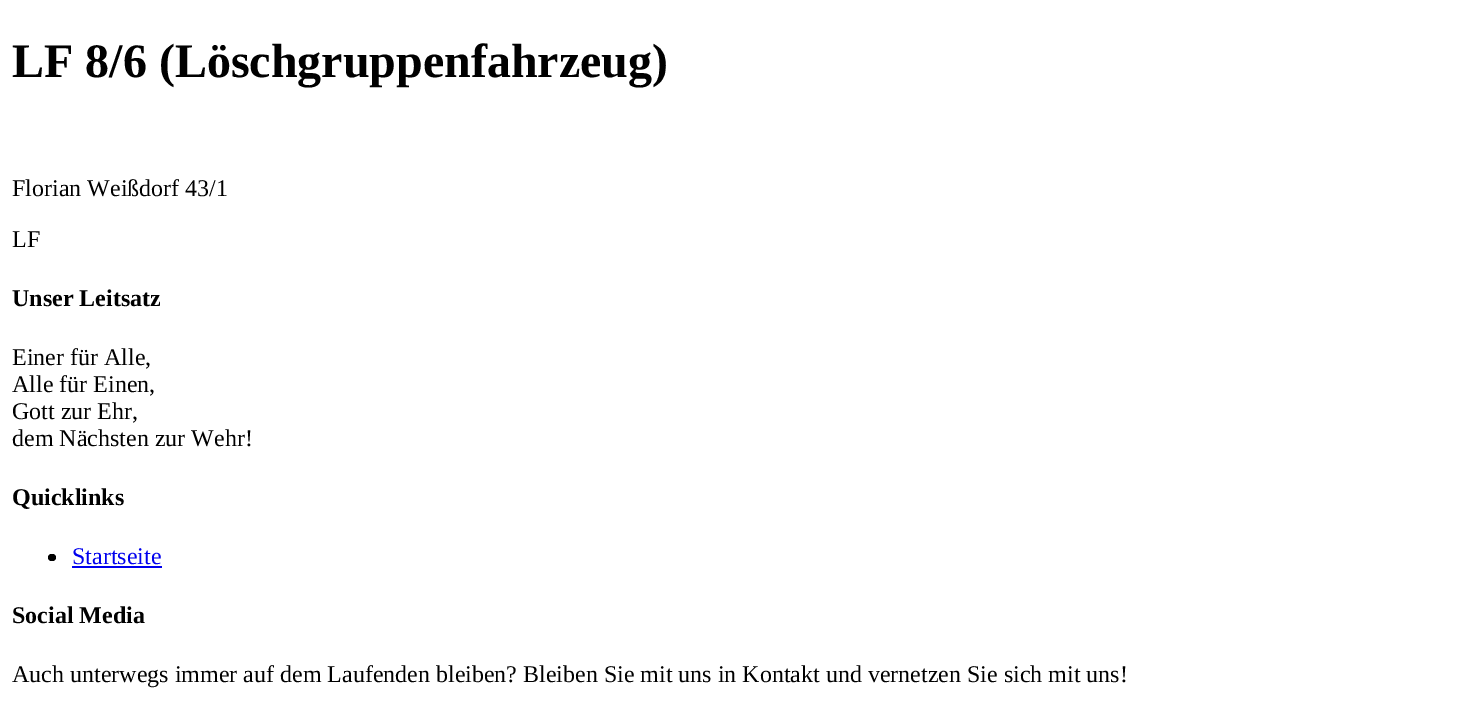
%!PS
<< /PageSize [1482 709] >> setpagedevice
/rgb { 3 { 255 div 3 1 roll } repeat setrgbcolor } def
/font { [ exch dup neg 0 0 3 -1 roll 0 0 ] selectfont } def
/roundrect { 5 dict begin { /r /h /w /y /x } { exch def } forall
  x r add y moveto x w add y 2 copy h add r arct x w add y h add x 1 index r arct
  x y h add x y r arct x y 2 copy exch w add exch r arct closepath end } def
0 709 translate 1 -1 scale
4 setmiterlimit
255 255 255 rgb
0 0 1482 709 rectfill
0 0 0 rgb
48 554 8 7 3.5 roundrect fill
0 0 238 rgb
72 566 90 2 rectfill
/LiberationSerif-Bold 48 font
0 0 0 rgb
12 77 moveto (LF 8/6 \(Löschgruppenfahrzeug\)) show
/LiberationSerif-Regular 24 font
12 196 moveto (Florian Weißdorf 43/1) show
12 247 moveto (LF) show
/LiberationSerif-Bold 24 font
12 306 moveto (Unser Leitsatz) show
/LiberationSerif-Regular 24 font
[
  [(Einer für Alle,) 12 365]
  [(Alle für Einen,) 12 392]
  [(Gott zur Ehr,) 12 419]
  [(dem Nächsten zur Wehr!) 12 446]
] { aload pop moveto show } forall
/LiberationSerif-Bold 24 font
12 505 moveto (Quicklinks) show
/LiberationSerif-Regular 24 font
0 0 238 rgb
72 564 moveto (Startseite) show
/LiberationSerif-Bold 24 font
0 0 0 rgb
12 623 moveto (Social Media) show
/LiberationSerif-Regular 24 font
12 682 moveto (Auch unterwegs immer auf dem Laufenden bleiben? Bleiben Sie mit uns in Kontakt und vernetzen Sie sich mit uns!) show
showpage
